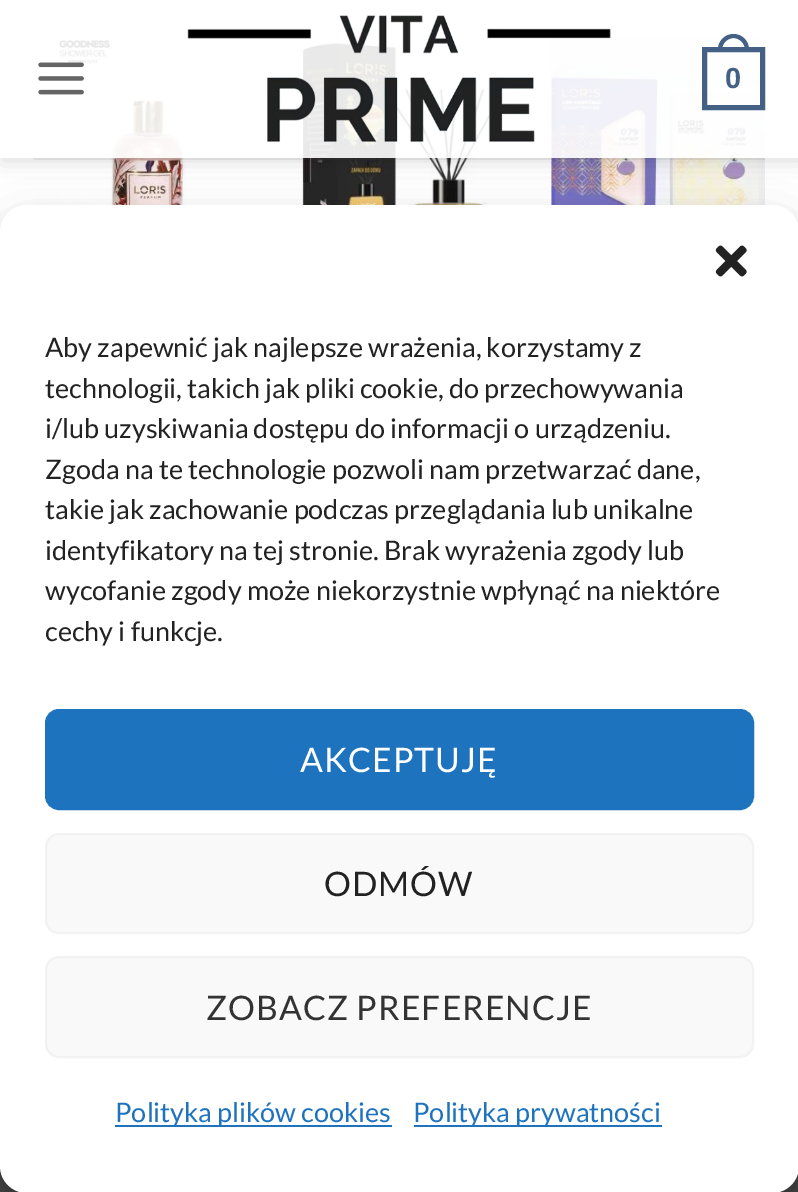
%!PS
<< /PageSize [798 1192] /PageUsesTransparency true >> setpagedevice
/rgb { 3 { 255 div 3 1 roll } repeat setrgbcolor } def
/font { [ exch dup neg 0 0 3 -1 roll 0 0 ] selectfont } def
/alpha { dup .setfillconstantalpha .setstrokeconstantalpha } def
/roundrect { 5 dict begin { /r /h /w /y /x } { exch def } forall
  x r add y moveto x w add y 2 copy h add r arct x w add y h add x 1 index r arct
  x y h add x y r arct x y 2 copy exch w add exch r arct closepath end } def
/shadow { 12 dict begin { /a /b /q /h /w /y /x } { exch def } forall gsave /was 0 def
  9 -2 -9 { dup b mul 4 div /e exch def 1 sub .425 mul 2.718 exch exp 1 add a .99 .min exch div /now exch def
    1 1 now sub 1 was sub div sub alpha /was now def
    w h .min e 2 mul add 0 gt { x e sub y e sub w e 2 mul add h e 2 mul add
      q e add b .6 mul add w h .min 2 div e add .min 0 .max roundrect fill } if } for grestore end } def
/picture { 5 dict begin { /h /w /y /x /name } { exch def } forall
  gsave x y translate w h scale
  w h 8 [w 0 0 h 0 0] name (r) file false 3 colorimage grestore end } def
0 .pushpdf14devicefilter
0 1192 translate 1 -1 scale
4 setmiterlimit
77 77 77 rgb
0 0 798 1192 rectfill
255 255 255 rgb
0 0 798 232 rectfill
(img/1.rgb) 34 36 152 169 picture
(img/2.rgb) 301 42 196 163 picture
(img/3.rgb) 551 36 214 169 picture
gsave
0 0 moveto 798 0 lineto 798 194 lineto 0 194 lineto closepath 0 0 moveto 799 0 lineto 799 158 lineto 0 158 lineto closepath eoclip newpath
0 0 0 rgb
2 2 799 158 0 11 0.15 shadow
grestore
0.9 alpha
0 36 798 122 rectfill
1 alpha
(img/4.rgb) 38 62 46 33 picture
(img/5.rgb) 187 15 424 127 picture
68 96 132 rgb
5 setlinewidth
704.5 49.5 58 58 rectstroke
733.5 34 moveto 742 34 749 41 749 49.5 curveto 749 52 lineto 718 52 lineto 718 49.5 lineto 718 41 725 34 733.5 34 curveto closepath 733.5 38 moveto 739.5 38 745 43.5 745 49.5 curveto 745 52 lineto 722 52 lineto 722 49.5 lineto 722 43.5 727.5 38 733.5 38 curveto closepath eofill
0.1 alpha
74 74 74 rgb
34 158 731 2 rectfill
1 alpha
0 0 0 rgb
0 218 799 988 27 7 0.23 shadow
0 227 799 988 27 22.5 0.19 shadow
255 255 255 rgb
0 205 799 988 27 roundrect fill
(img/6.rgb) 715 245 32 32 picture
30 115 190 rgb
46 710 707 99 13 roundrect gsave fill grestore
2 setlinewidth
stroke
249 249 249 rgb
46 834 707 99 13 roundrect gsave fill grestore
242 242 242 rgb
stroke
249 249 249 rgb
46 957 707 100 13 roundrect gsave fill grestore
242 242 242 rgb
stroke
30 115 190 rgb
115 1125 277 2 rectfill
414 1125 248 2 rectfill
/LiberationSans-Bold 29 font
68 96 132 rgb
725 88 moveto (0) show
/Lato-Regular 27 font
34 34 34 rgb
[
  [(Aby zapewnić jak najlepsze wrażenia, korzystamy z) 45 357]
  [(technologii, takich jak pliki cookie, do przechowywania) 45 398]
  [(i/lub uzyskiwania dostępu do informacji o urządzeniu.) 45 438]
  [(Zgoda na te technologie pozwoli nam przetwarzać dane,) 45 479]
  [(takie jak zachowanie podczas przeglądania lub unikalne) 45 519]
  [(identyfikatory na tej stronie. Brak wyrażenia zgody lub) 45 560]
  [(wycofanie zgody może niekorzystnie wpłynąć na niektóre) 45 600]
  [(cechy i funkcje.) 45 641]
] { aload pop moveto show } forall
/Lato-Regular 33.75 font
255 255 255 rgb
300 772 moveto 1 0 (AKCEPTUJĘ) ashow
34 34 34 rgb
324 896 moveto 1 0 (ODMÓW) ashow
51 51 51 rgb
206 1020 moveto 1 0 (ZOBACZ PREFERENCJE) ashow
/Lato-Regular 27 font
30 115 190 rgb
115 1122 moveto (Polityka plików cookies) show
413 1122 moveto (Polityka prywatności) show
.poppdf14devicefilter showpage
